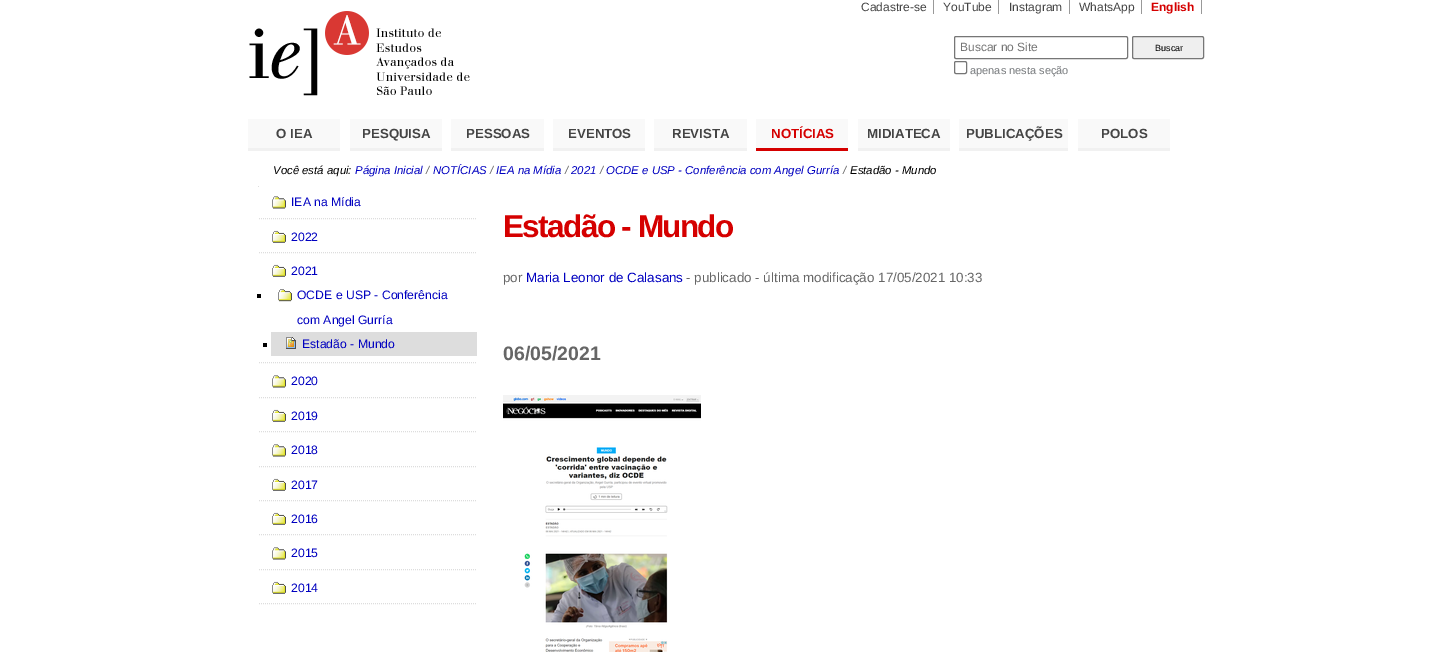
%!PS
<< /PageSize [1456 652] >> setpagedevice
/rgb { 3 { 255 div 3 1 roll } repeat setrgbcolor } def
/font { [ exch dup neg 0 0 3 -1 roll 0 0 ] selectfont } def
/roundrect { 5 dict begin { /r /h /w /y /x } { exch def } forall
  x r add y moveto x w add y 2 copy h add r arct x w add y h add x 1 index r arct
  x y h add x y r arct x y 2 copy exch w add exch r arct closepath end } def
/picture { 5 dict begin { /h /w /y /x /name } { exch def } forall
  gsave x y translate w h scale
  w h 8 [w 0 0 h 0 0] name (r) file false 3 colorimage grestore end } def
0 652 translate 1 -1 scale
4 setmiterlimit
255 255 255 rgb
0 0 1456 652 rectfill
[
  [933 0 1 14 153 153 153]
  [998 0 1 14 153 153 153]
  [1069 0 1 14 153 153 153]
  [1141 0 1 14 153 153 153]
  [1201 0 1 14 153 153 153]
] { aload pop rgb rectfill } forall
(img/1.rgb) 249 11 221 85 picture
118 118 118 rgb
954.5 36.5 173 22 1.5 roundrect stroke
239 239 239 rgb
1132.5 36.5 71 22 1.5 roundrect gsave fill grestore
118 118 118 rgb
stroke
954.5 61.5 12 12 1.5 roundrect stroke
[
  [248 119 92 29 249 249 249]
  [248 148 92 3 241 241 241]
  [350 119 92 29 249 249 249]
  [350 148 92 3 241 241 241]
  [451 119 93 29 249 249 249]
  [451 148 93 3 241 241 241]
  [553 119 92 29 249 249 249]
  [553 148 92 3 241 241 241]
  [654 119 93 29 249 249 249]
  [654 148 93 3 241 241 241]
  [756 119 92 29 249 249 249]
  [756 148 92 3 213 0 0]
  [858 119 92 29 249 249 249]
  [858 148 92 3 241 241 241]
  [959 119 109 29 249 249 249]
  [959 148 109 3 241 241 241]
  [1078 119 92 29 249 249 249]
  [1078 148 92 3 241 241 241]
  [258 186 1 1 221 221 221]
] { aload pop rgb rectfill } forall
[1 1] 0 setdash
259 218.5 moveto 477 218.5 lineto stroke
(img/2.rgb) 272 196 14 13 picture
259 252.5 moveto 477 252.5 lineto stroke
(img/3.rgb) 272 230 14 13 picture
259 362.5 moveto 477 362.5 lineto stroke
(img/3.rgb) 272 264 14 13 picture
0 0 0 rgb
257 294 4 4 rectfill
(img/4.rgb) 278 289 14 13 picture
263 343 4 4 rectfill
221 221 221 rgb
271 332 206 24 rectfill
(img/5.rgb) 286 337 10 12 picture
259 397.5 moveto 477 397.5 lineto stroke
(img/2.rgb) 272 375 14 13 picture
259 431.5 moveto 477 431.5 lineto stroke
(img/3.rgb) 272 409 14 13 picture
259 466.5 moveto 477 466.5 lineto stroke
(img/2.rgb) 272 444 14 13 picture
259 500.5 moveto 477 500.5 lineto stroke
(img/3.rgb) 272 478 14 13 picture
259 534.5 moveto 477 534.5 lineto stroke
(img/3.rgb) 272 512 14 13 picture
259 569.5 moveto 477 569.5 lineto stroke
(img/2.rgb) 272 547 14 13 picture
259 603.5 moveto 477 603.5 lineto stroke
(img/3.rgb) 272 581 14 13 picture
(img/6.rgb) 503 395 198 257 picture
/LiberationSans-Regular 12 font
68 68 68 rgb
[
  [(Cadastre-se) 861 11]
  [(YouTube) 943 11]
  [(Instagram) 1009 11]
  [(WhatsApp) 1079 11]
] { aload pop moveto show } forall
/LiberationSans-Bold 12 font
213 0 0 rgb
1151 11 moveto (English) show
/LiberationSans-Regular 12 font
117 117 117 rgb
960 51 moveto (Buscar no Site) show
/LiberationSans-Regular 9 font
0 0 0 rgb
1155 51 moveto (Buscar) show
/LiberationSans-Regular 11 font
118 121 124 rgb
970 74 moveto (apenas nesta seção) show
/LiberationSans-Bold 13.25 font
68 68 68 rgb
[
  [(O IEA) 276 138]
  [(PESQUISA) 362 138]
  [(PESSOAS) 466 138]
  [(EVENTOS) 568 138]
  [(REVISTA) 672 138]
] { aload pop moveto show } forall
213 0 0 rgb
771 138 moveto (NOTÍCIAS) show
68 68 68 rgb
[
  [(MIDIATECA) 867 138]
  [(PUBLICAÇÕES) 966 138]
  [(POLOS) 1101 138]
] { aload pop moveto show } forall
/LiberationSans-Italic 11.4 font
0 0 0 rgb
273 174 moveto (Você está aqui:) show
0 0 192 rgb
355 174 moveto (Página Inicial) show
102 102 102 rgb
426 174 moveto (/) show
0 0 192 rgb
433 174 moveto (NOTÍCIAS) show
102 102 102 rgb
490 174 moveto (/) show
0 0 192 rgb
496 174 moveto (IEA na Mídia) show
102 102 102 rgb
565 174 moveto (/) show
0 0 192 rgb
571 174 moveto (2021) show
102 102 102 rgb
600 174 moveto (/) show
0 0 192 rgb
606 174 moveto (OCDE e USP - Conferência com Angel Gurría) show
102 102 102 rgb
843 174 moveto (/) show
0 0 0 rgb
850 174 moveto (Estadão - Mundo) show
/LiberationSans-Regular 12.2 font
0 0 192 rgb
[
  [(IEA na Mídia) 291 206]
  [(2022) 291 241]
  [(2021) 291 275]
  [(OCDE e USP - Conferência) 297 299]
  [(com Angel Gurría) 297 324]
  [(Estadão - Mundo) 302 348]
  [(2020) 291 385]
  [(2019) 291 420]
  [(2018) 291 454]
  [(2017) 291 489]
  [(2016) 291 523]
  [(2015) 291 557]
  [(2014) 291 592]
] { aload pop moveto show } forall
/LiberationSans-Bold 31.5 font
213 0 0 rgb
503 237 moveto -1.6 0 (Estadão - Mundo) ashow
/LiberationSans-Regular 13.4 font
102 102 102 rgb
503 282 moveto (por) show
0 0 192 rgb
526 282 moveto (Maria Leonor de Calasans) show
102 102 102 rgb
686 282 moveto (- publicado - última modificação 17/05/2021 10:33) show
/LiberationSans-Bold 19.5 font
503 360 moveto (06/05/2021) show
showpage
